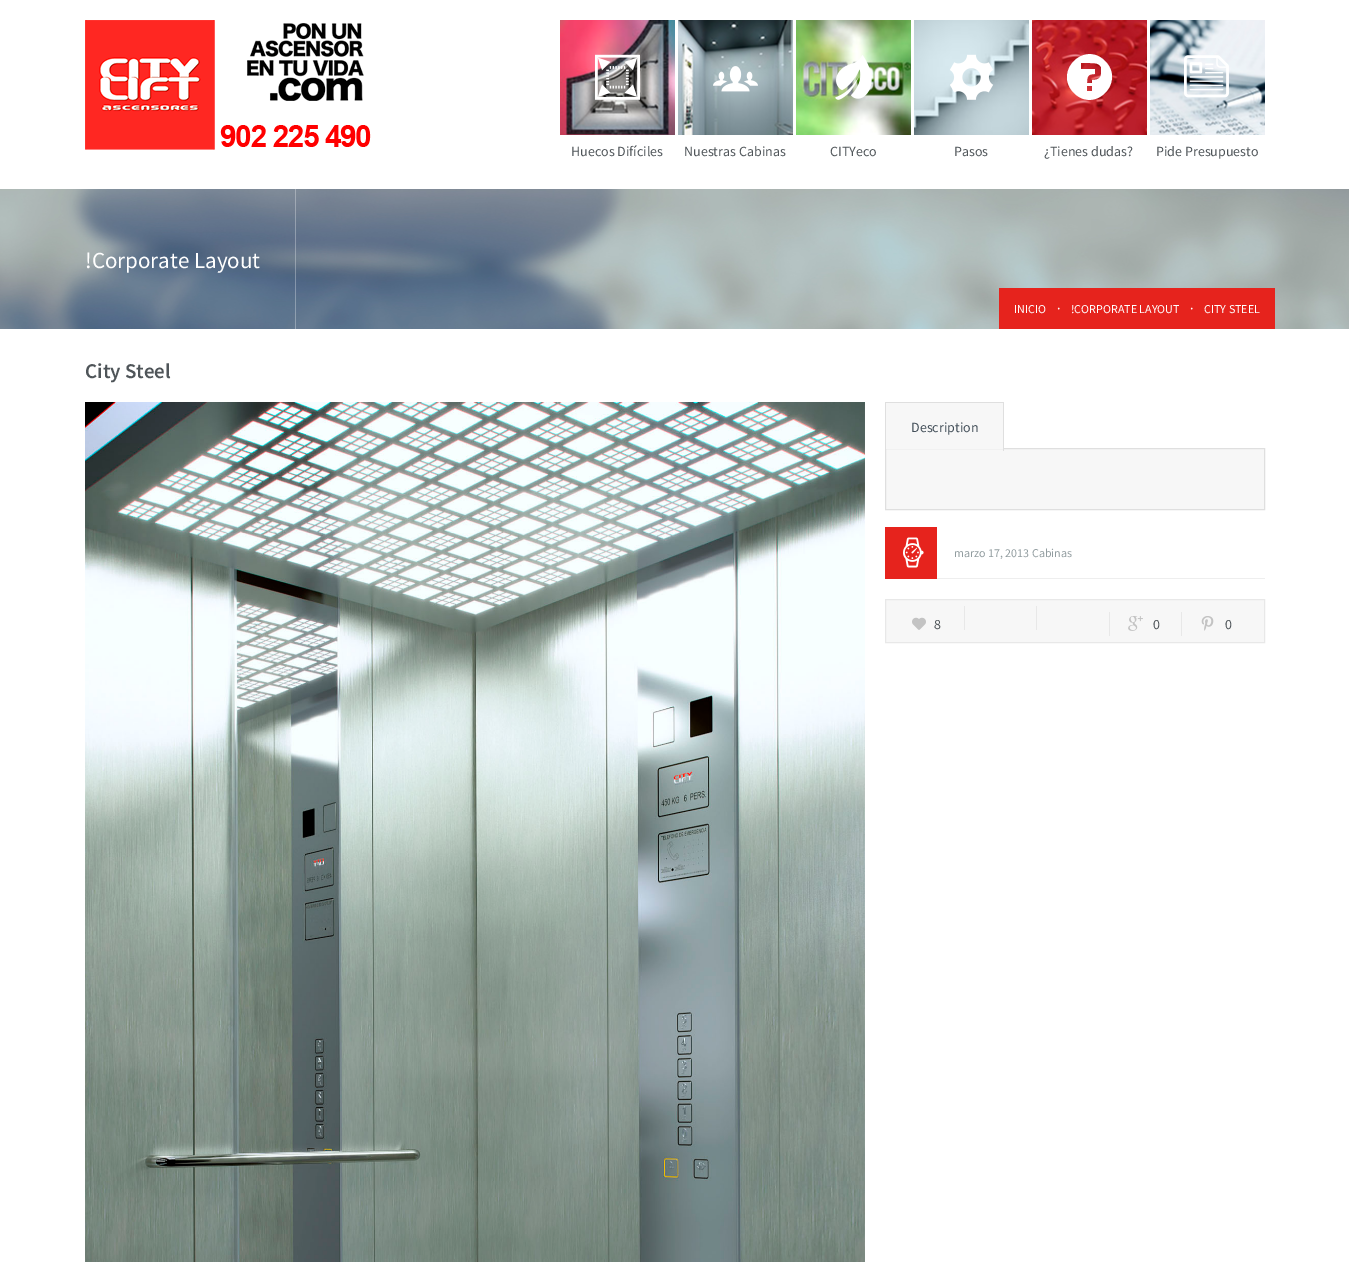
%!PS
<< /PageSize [1349 1262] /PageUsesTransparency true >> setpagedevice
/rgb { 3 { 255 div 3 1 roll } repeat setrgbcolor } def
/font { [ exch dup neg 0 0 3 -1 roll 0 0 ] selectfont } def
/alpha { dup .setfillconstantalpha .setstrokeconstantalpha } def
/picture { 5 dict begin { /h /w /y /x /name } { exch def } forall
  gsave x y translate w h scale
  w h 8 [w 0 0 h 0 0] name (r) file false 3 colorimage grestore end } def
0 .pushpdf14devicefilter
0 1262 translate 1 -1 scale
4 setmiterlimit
255 255 255 rgb
0 0 1349 1262 rectfill
(img/1.rgb) 85 20 286 130 picture
(img/2.rgb) 560 20 115 115 picture
(img/3.rgb) 595 54 45 46 picture
(img/4.rgb) 678 20 115 115 picture
(img/5.rgb) 713 66 45 26 picture
(img/6.rgb) 796 20 115 115 picture
(img/7.rgb) 835 55 37 45 picture
(img/8.rgb) 914 20 115 115 picture
(img/9.rgb) 950 54 44 46 picture
(img/10.rgb) 1032 20 115 115 picture
1105 61 moveto 1084 40 1053 72 1074 93 curveto 1095 114 1126 82 1105 61 curveto closepath 1092 91 moveto 1087 91 lineto 1087 86 lineto 1092 86 lineto closepath 1101 74 moveto 1101 79 1096 80 1092 80 curveto 1092 83 lineto 1087 83 lineto 1087 76 1088 74 1095 74 curveto 1095 69 lineto 1081 69 lineto 1081 63 lineto 1090 63 lineto 1094 63 1099 63 1101 67 curveto closepath fill
(img/11.rgb) 1150 20 115 115 picture
(img/12.rgb) 1184 55 45 43 picture
(img/13.rgb) 0 189 1349 140 picture
0.3 alpha
295 189 1 140 rectfill
1 alpha
230 35 29 rgb
999 288 276 41 rectfill
(img/14.rgb) 85 402 780 860 picture
247 247 247 rgb
885.5 448.5 moveto 1264.5 448.5 lineto 1264.5 509.5 lineto 885.5 509.5 lineto closepath gsave fill grestore
223 223 223 rgb
stroke
[
  [886 403 117 46 247 247 247]
  [885 402 119 1 223 223 223]
  [1003 402 1 49 223 223 223]
  [885 402 1 49 223 223 223]
  [937 578 328 1 238 238 238]
  [885 527 52 52 230 35 29]
] { aload pop rgb rectfill } forall
(img/15.rgb) 903 537 21 31 picture
247 247 247 rgb
885.5 599.5 moveto 1264.5 599.5 lineto 1264.5 642.5 lineto 885.5 642.5 lineto closepath gsave fill grestore
232 232 232 rgb
stroke
(img/16.rgb) 912 617 14 13 picture
[
  [964 606 1 24 232 232 232]
  [1036 606 1 24 232 232 232]
  [1109 612 1 24 232 232 232]
] { aload pop rgb rectfill } forall
(img/17.rgb) 1128 616 15 15 picture
1181 612 1 24 rectfill
(img/18.rgb) 1201 616 13 15 picture
/SourceSansPro-Regular 14 font
79 85 89 rgb
[
  [(Huecos Difíciles) 571 156]
  [(Nuestras Cabinas) 684 156]
  [(CITYeco) 830 156]
  [(Pasos) 954 156]
  [(¿Tienes dudas?) 1044 156]
  [(Pide Presupuesto) 1156 156]
] { aload pop moveto show } forall
/SourceSansPro-Regular 23 font
255 255 255 rgb
85 268 moveto (!Corporate Layout) show
/SourceSansPro-Regular 12 font
1014 313 moveto (INICIO) show
/SourceSansPro-Regular 14 font
1057 313 moveto (·) show
/SourceSansPro-Regular 12 font
1071 313 moveto (!CORPORATE LAYOUT) show
/SourceSansPro-Regular 14 font
1190 313 moveto (·) show
/SourceSansPro-Regular 12 font
1204 313 moveto (CITY STEEL) show
/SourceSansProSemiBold-SemiBold 21 font
79 85 89 rgb
85 378 moveto (City Steel) show
/SourceSansPro-Regular 14 font
68 80 90 rgb
911 432 moveto (Description) show
/SourceSansPro-Regular 12 font
146 157 160 rgb
954 557 moveto (marzo 17, 2013 Cabinas) show
/SourceSansPro-Regular 14 font
79 85 89 rgb
[
  [(8) 934 629]
  [(0) 1153 629]
  [(0) 1225 629]
] { aload pop moveto show } forall
.poppdf14devicefilter showpage
